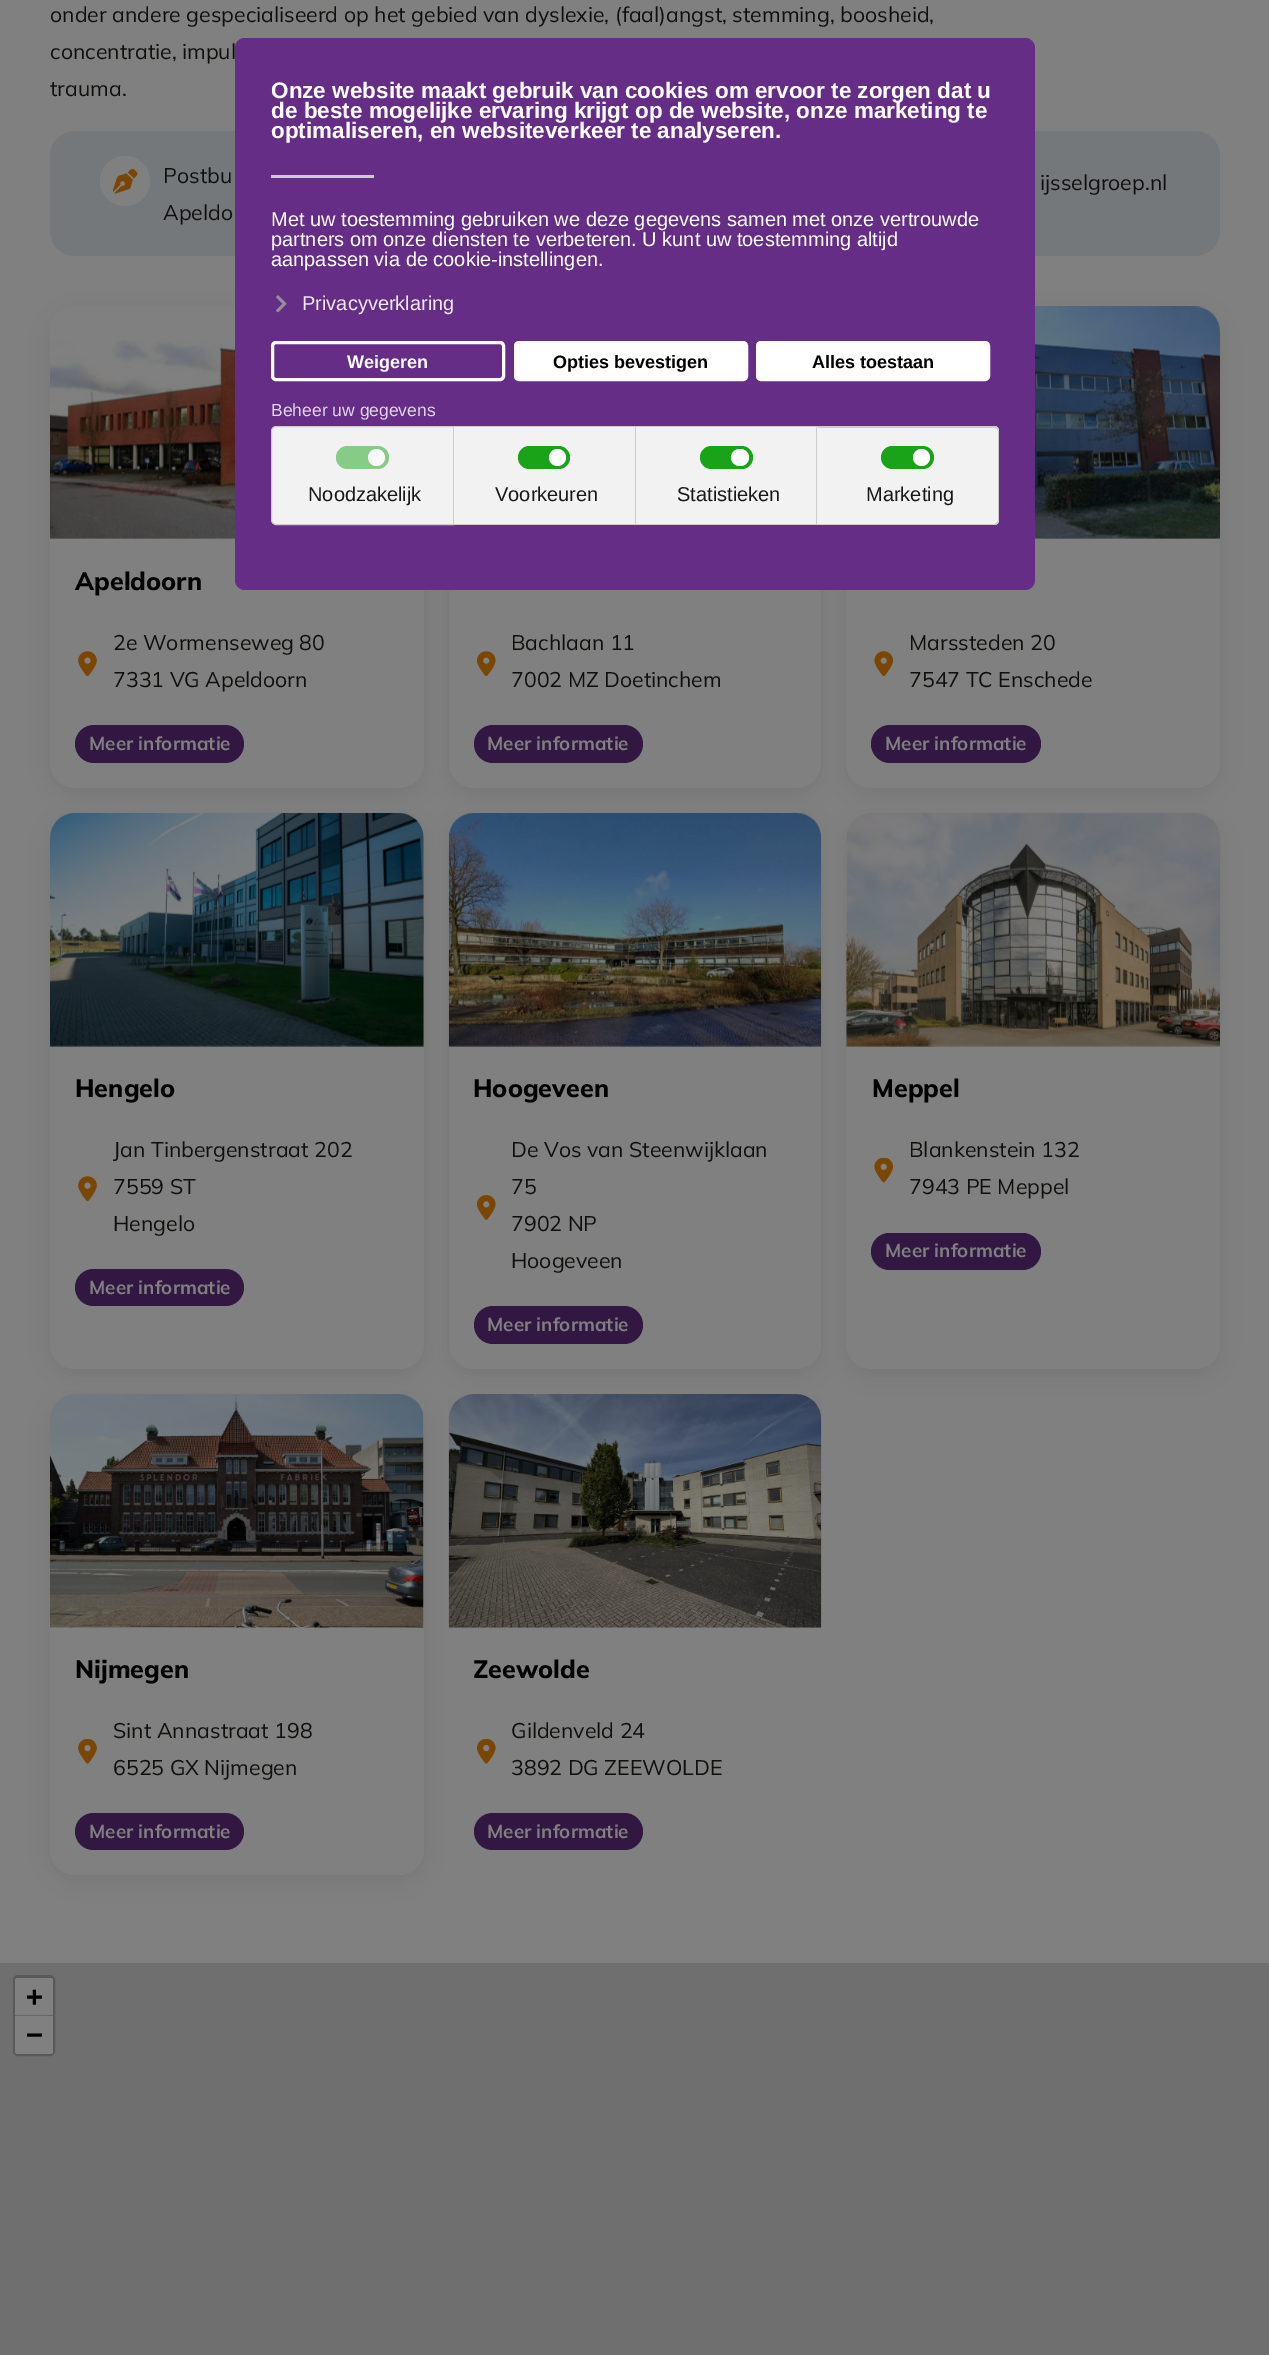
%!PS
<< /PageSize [1269 2355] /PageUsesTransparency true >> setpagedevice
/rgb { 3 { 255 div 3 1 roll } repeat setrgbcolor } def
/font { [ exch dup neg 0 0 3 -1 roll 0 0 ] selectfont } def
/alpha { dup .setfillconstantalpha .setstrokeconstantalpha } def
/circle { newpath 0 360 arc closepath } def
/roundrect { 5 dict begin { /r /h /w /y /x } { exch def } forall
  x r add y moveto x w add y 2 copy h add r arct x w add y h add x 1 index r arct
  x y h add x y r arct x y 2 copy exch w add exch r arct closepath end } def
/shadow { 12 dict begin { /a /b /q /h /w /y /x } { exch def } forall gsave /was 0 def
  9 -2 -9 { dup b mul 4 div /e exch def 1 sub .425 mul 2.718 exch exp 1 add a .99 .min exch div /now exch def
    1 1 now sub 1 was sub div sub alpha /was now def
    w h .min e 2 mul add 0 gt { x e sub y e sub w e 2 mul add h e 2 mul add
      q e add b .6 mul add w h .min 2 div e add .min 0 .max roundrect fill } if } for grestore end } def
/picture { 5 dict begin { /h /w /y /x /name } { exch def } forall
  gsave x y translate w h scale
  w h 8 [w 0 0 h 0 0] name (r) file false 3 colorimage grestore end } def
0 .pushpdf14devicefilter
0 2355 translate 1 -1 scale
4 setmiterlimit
128 128 128 rgb
0 0 1269 2355 rectfill
117 120 122 rgb
50 131 1170 125 25 roundrect fill
128 128 128 rgb
125 181 25 circle fill
(img/1.rgb) 113 169 25 25 picture
0 0 0 rgb
50 313 374 481 25 9.5 0.08 shadow
128 128 128 rgb
50 306 374 482 25 roundrect fill
(img/2.rgb) 50 340 185 199 picture
(img/3.rgb) 78 651 19 25 picture
51 23 67 rgb
75 725 169 38 19 roundrect fill
0 0 0 rgb
449 313 372 481 25 9.5 0.08 shadow
128 128 128 rgb
449 306 372 482 25 roundrect fill
(img/4.rgb) 476 651 20 25 picture
51 23 67 rgb
474 725 169 38 19 roundrect fill
0 0 0 rgb
846 313 374 481 25 9.5 0.08 shadow
128 128 128 rgb
846 306 374 482 25 roundrect fill
(img/5.rgb) 1035 306 185 233 picture
(img/6.rgb) 874 651 20 25 picture
51 23 67 rgb
871 725 170 38 19 roundrect fill
0 0 0 rgb
50 819 374 556 25 9.5 0.08 shadow
128 128 128 rgb
50 813 374 556 25 roundrect fill
(img/7.rgb) 50 813 374 234 picture
(img/3.rgb) 78 1176 19 25 picture
51 23 67 rgb
75 1269 169 37 18.5 roundrect fill
0 0 0 rgb
449 819 372 556 25 9.5 0.08 shadow
128 128 128 rgb
449 813 372 556 25 roundrect fill
(img/8.rgb) 448 813 374 234 picture
(img/9.rgb) 476 1195 20 25 picture
51 23 67 rgb
474 1306 169 38 19 roundrect fill
0 0 0 rgb
846 819 374 556 25 9.5 0.08 shadow
128 128 128 rgb
846 813 374 556 25 roundrect fill
(img/10.rgb) 846 813 374 234 picture
(img/11.rgb) 874 1158 20 25 picture
51 23 67 rgb
871 1233 170 37 18.5 roundrect fill
0 0 0 rgb
50 1400 374 481 25 9.5 0.08 shadow
128 128 128 rgb
50 1394 374 481 25 roundrect fill
(img/12.rgb) 50 1394 374 234 picture
(img/13.rgb) 78 1739 19 25 picture
51 23 67 rgb
75 1813 169 37 18.5 roundrect fill
(img/14.rgb) 448 1394 374 234 picture
(img/15.rgb) 476 1739 20 25 picture
474 1813 169 37 18.5 roundrect fill
111 111 111 rgb
0 1963 1269 392 rectfill
89 89 89 rgb
3 setlinewidth
14.5 1976.5 39 78 3.5 roundrect stroke
128 128 128 rgb
17.5 1978 moveto 50.5 1978 lineto 52 1978 53 1979 53 1980.5 curveto 53 2016 lineto 15 2016 lineto 15 1980.5 lineto 15 1979 16 1978 17.5 1978 curveto closepath fill
102 102 102 rgb
15 2015 38 1 rectfill
128 128 128 rgb
15 2016 moveto 53 2016 lineto 53 2051.5 lineto 53 2053 52 2054 50.5 2054 curveto 17.5 2054 lineto 16 2054 15 2053 15 2051.5 curveto closepath fill
101 45 134 rgb
235 38 800 552 10 roundrect fill
204 204 204 rgb
271 175 103 3 rectfill
(img/16.rgb) 276 295 11 18 picture
255 255 255 rgb
272.5 342.5 231 37 3.5 roundrect stroke
515.5 342.5 231 37 3.5 roundrect gsave fill grestore
stroke
757.5 342.5 231 37 3.5 roundrect gsave fill grestore
stroke
242 242 242 rgb
276 426.5 moveto 453.5 426.5 lineto 453.5 524.5 lineto 276 524.5 lineto 273.5 524.5 271.5 522.5 271.5 520 curveto 271.5 431 lineto 271.5 428.5 273.5 426.5 276 426.5 curveto closepath gsave fill grestore
204 204 204 rgb
1 setlinewidth
stroke
134 203 134 rgb
336 446 53 23 11.5 roundrect fill
249 249 249 rgb
376.5 457.5 8.5 circle fill
[
  [454 427 181 97 242 242 242]
  [454 426 364 1 204 204 204]
  [635 426 1 99 204 204 204]
  [454 524 182 1 204 204 204]
] { aload pop rgb rectfill } forall
25 163 25 rgb
518 446 52 23 11.5 roundrect fill
255 255 255 rgb
557.5 457.5 8.5 circle fill
[
  [636 427 182 97 242 242 242]
  [816 426 1 99 204 204 204]
  [636 524 182 1 204 204 204]
] { aload pop rgb rectfill } forall
25 163 25 rgb
700 446 53 23 11.5 roundrect fill
255 255 255 rgb
731 449 18 17 8.5 roundrect fill
242 242 242 rgb
818 426 moveto 994 426 lineto 997 426 999 428 999 431 curveto 999 520 lineto 999 523 997 525 994 525 curveto 818 525 lineto closepath fill
204 204 204 rgb
818 426 moveto 994 426 lineto 997 426 999 428 999 431 curveto 999 520 lineto 999 523 997 525 994 525 curveto 818 525 lineto closepath 818 428 moveto 994 428 lineto 996 428 998 429 998 431 curveto 998 520 lineto 998 522 996 524 994 524 curveto 818 524 lineto closepath eofill
25 163 25 rgb
881 446 53 23 11.5 roundrect fill
255 255 255 rgb
921.5 457.5 8.5 circle fill
/Mulish-ExtraLight 21.25 font
15 15 14 rgb
[
  [(onder andere gespecialiseerd op het gebied van dyslexie, \(faal\)angst, stemming, boosheid,) 50 22]
  [(concentratie, impul) 50 59]
  [(trauma.) 50 96]
  [(Postbu) 163 183]
  [(Apeldo) 163 220]
  [(ijsselgroep.nl) 1040 190]
] { aload pop moveto show } forall
/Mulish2-ExtraLight 25 font
0 0 0 rgb
75 590 moveto (Apeldoorn) show
/Mulish-ExtraLight 21.25 font
15 15 14 rgb
113 650 moveto (2e Wormenseweg 80) show
113 687 moveto (7331 VG Apeldoorn) show
/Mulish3-ExtraLight 18.75 font
128 128 128 rgb
89 750 moveto (Meer informatie) show
/Mulish-ExtraLight 21.25 font
15 15 14 rgb
511 650 moveto (Bachlaan 11) show
511 687 moveto (7002 MZ Doetinchem) show
/Mulish3-ExtraLight 18.75 font
128 128 128 rgb
487 750 moveto (Meer informatie) show
/Mulish-ExtraLight 21.25 font
15 15 14 rgb
909 650 moveto (Marssteden 20) show
909 687 moveto (7547 TC Enschede) show
/Mulish3-ExtraLight 18.75 font
128 128 128 rgb
885 750 moveto (Meer informatie) show
/Mulish2-ExtraLight 25 font
0 0 0 rgb
75 1097 moveto (Hengelo) show
/Mulish-ExtraLight 21.25 font
15 15 14 rgb
[
  [(Jan Tinbergenstraat 202) 113 1157]
  [(7559 ST) 113 1194]
  [(Hengelo) 113 1231]
] { aload pop moveto show } forall
/Mulish3-ExtraLight 18.75 font
128 128 128 rgb
89 1294 moveto (Meer informatie) show
/Mulish2-ExtraLight 25 font
0 0 0 rgb
473 1097 moveto (Hoogeveen) show
/Mulish-ExtraLight 21.25 font
15 15 14 rgb
[
  [(De Vos van Steenwijklaan) 511 1157]
  [(75) 511 1194]
  [(7902 NP) 511 1231]
  [(Hoogeveen) 511 1268]
] { aload pop moveto show } forall
/Mulish3-ExtraLight 18.75 font
128 128 128 rgb
487 1331 moveto (Meer informatie) show
/Mulish2-ExtraLight 25 font
0 0 0 rgb
872 1097 moveto (Meppel) show
/Mulish-ExtraLight 21.25 font
15 15 14 rgb
909 1157 moveto (Blankenstein 132) show
909 1194 moveto (7943 PE Meppel) show
/Mulish3-ExtraLight 18.75 font
128 128 128 rgb
885 1257 moveto (Meer informatie) show
/Mulish2-ExtraLight 25 font
0 0 0 rgb
75 1678 moveto (Nijmegen) show
/Mulish-ExtraLight 21.25 font
15 15 14 rgb
113 1738 moveto (Sint Annastraat 198) show
113 1775 moveto (6525 GX Nijmegen) show
/Mulish3-ExtraLight 18.75 font
128 128 128 rgb
89 1838 moveto (Meer informatie) show
/Mulish2-ExtraLight 25 font
0 0 0 rgb
473 1678 moveto (Zeewolde) show
/Mulish-ExtraLight 21.25 font
15 15 14 rgb
511 1738 moveto (Gildenveld 24) show
511 1775 moveto (3892 DG ZEEWOLDE) show
/Mulish3-ExtraLight 18.75 font
128 128 128 rgb
487 1838 moveto (Meer informatie) show
/DejaVuSansMono-Bold 28 font
0 0 0 rgb
26 2006 moveto (+) show
26 2044 moveto (−) show
/LiberationSans-Bold 22.5 font
255 255 255 rgb
[
  [(Onze website maakt gebruik van cookies om ervoor te zorgen dat u) 271 98]
  [(de beste mogelijke ervaring krijgt op de website, onze marketing te) 271 118]
  [(optimaliseren, en websiteverkeer te analyseren.) 271 138]
] { aload pop moveto show } forall
/LiberationSans-Regular 20 font
[
  [(Met uw toestemming gebruiken we deze gegevens samen met onze vertrouwde) 271 226]
  [(partners om onze diensten te verbeteren. U kunt uw toestemming altijd) 271 246]
  [(aanpassen via de cookie-instellingen.) 271 266]
] { aload pop moveto show } forall
240 234 243 rgb
302 310 moveto (Privacyverklaring) show
/LiberationSans-Bold 18 font
255 255 255 rgb
347 368 moveto (Weigeren) show
0 0 0 rgb
553 368 moveto (Opties bevestigen) show
812 368 moveto (Alles toestaan) show
/LiberationSans-Regular 17.5 font
224 213 231 rgb
271 416 moveto (Beheer uw gegevens) show
/LiberationSans-Regular 20 font
24 24 24 rgb
[
  [(Noodzakelijk) 308 501]
  [(Voorkeuren) 495 501]
  [(Statistieken) 677 501]
  [(Marketing) 866 501]
] { aload pop moveto show } forall
.poppdf14devicefilter showpage
